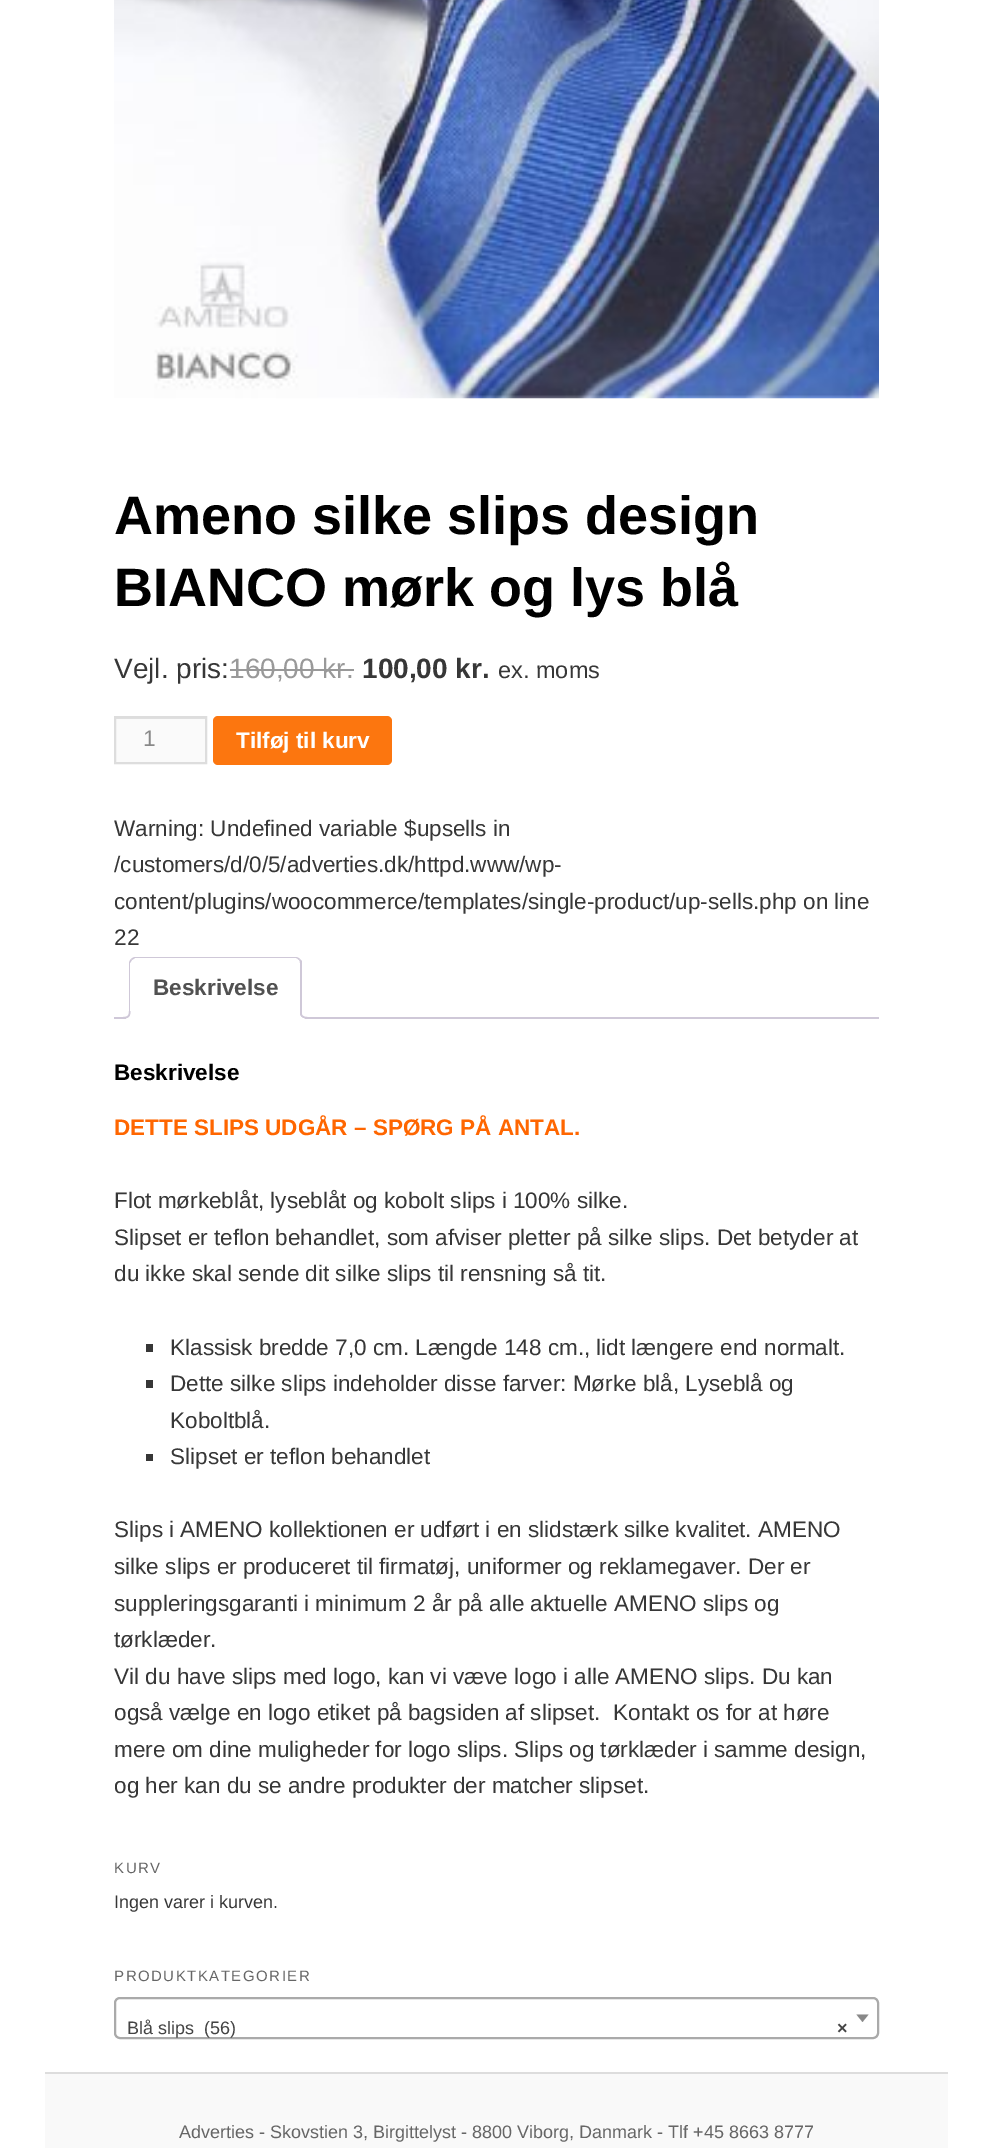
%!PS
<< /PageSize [992 2148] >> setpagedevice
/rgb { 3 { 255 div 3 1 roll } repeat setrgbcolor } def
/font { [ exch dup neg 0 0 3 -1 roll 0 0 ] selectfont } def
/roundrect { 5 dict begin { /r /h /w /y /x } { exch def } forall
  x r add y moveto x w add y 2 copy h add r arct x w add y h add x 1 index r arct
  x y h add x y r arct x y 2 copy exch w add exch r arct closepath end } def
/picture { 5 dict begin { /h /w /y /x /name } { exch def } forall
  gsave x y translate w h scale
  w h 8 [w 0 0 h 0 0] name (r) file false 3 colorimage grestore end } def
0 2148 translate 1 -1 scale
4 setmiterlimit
255 255 255 rgb
0 0 992 2148 rectfill
(img/1.rgb) 114 0 765 399 picture
[
  [230 669 124 2 153 153 153]
  [116 719 89 43 250 250 250]
  [116 718 90 1 225 225 225]
] { aload pop rgb rectfill } forall
221 221 221 rgb
2 setlinewidth
115 717 91 46 rectstroke
252 118 15 rgb
213 716 179 49 5 roundrect fill
207 200 216 rgb
114 1017 765 2 rectfill
255 255 255 rgb
135 957 moveto 296 957 lineto 299.5 957 302 959.5 302 963 curveto 302 1019 lineto 129 1019 lineto 129 963 lineto 129 959.5 131.5 957 135 957 curveto closepath fill
207 200 216 rgb
135 957 moveto 134 957 132 958 131 959 curveto 132 960 lineto 135 958 lineto 296 958 lineto 297 958 298 959 299 960 curveto 300 959 lineto 299 958 297 957 296 957 curveto closepath fill
302 1018 moveto 300 1017 lineto 300 963 lineto 300 962 300 961 299 960 curveto 300 959 lineto 302 961 lineto closepath fill
255 255 255 rgb
301 1018 moveto 130 1018 lineto 130 1017 lineto 300 1017 lineto closepath fill
207 200 216 rgb
129 963 moveto 129 1018 lineto 130 1018 lineto 130 1017 lineto 130 963 lineto 132 960 lineto 131 959 lineto 130 960 129 962 129 963 curveto closepath fill
gsave
114 957 765 62 rectclip
255 255 255 rgb
126 1018.5 moveto 126 1022 lineto 132 1022 134 1020 134 1014 curveto 130.5 1014 lineto 130 1016 128 1018 126 1018.5 curveto closepath fill
grestore
123 1011 moveto 130.5 1011 lineto 130.5 1016.5 128.5 1018.5 123 1018.5 curveto closepath 123 1011 moveto 129 1011 lineto 129 1015.5 127.5 1017 123 1017 curveto closepath eofill
gsave
114 957 765 62 rectclip
255 255 255 rgb
297 1014 moveto 297 1020 299 1022 305 1022 curveto 305 1018.5 lineto 302.5 1018 301 1016.5 300 1014 curveto closepath fill
grestore
300 1011 moveto 307.5 1011 lineto 307.5 1018.5 lineto 303.5 1018.5 300 1017 300 1012.5 curveto closepath 301.5 1011 moveto 307.5 1011 lineto 307.5 1017 lineto 304.5 1017 301.5 1016 301.5 1012.5 curveto closepath eofill
[
  [146 1344 7 8 55 55 55]
  [146 1380 7 8 55 55 55]
  [146 1454 7 7 55 55 55]
] { aload pop rgb rectfill } forall
170 170 170 rgb
115 1998 763 40 5 roundrect stroke
136 136 136 rgb
856.5 2014.5 moveto 868.5 2014.5 lineto 862.5 2022 lineto closepath fill
249 249 249 rgb
45 2074 903 74 rectfill
221 221 221 rgb
45 2072 903 2 rectfill
/LiberationSans-Bold 54 font
0 0 0 rgb
114 534 moveto (Ameno silke slips design) show
114 606 moveto (BIANCO mørk og lys blå) show
/LiberationSans-Regular 28 font
55 55 55 rgb
114 678 moveto (Vejl. pris:) show
153 153 153 rgb
229 678 moveto (160,00 kr.) show
/LiberationSans-Bold 28 font
55 55 55 rgb
362 678 moveto (100,00 kr.) show
/LiberationSans-Regular 23.5 font
498 678 moveto (ex. moms) show
/LiberationSans-Regular 22.5 font
136 136 136 rgb
143 746 moveto (1) show
/LiberationSans-Bold 22.5 font
255 255 255 rgb
236 748 moveto (Tilføj til kurv) show
/LiberationSans-Regular 22.5 font
55 55 55 rgb
[
  [(Warning: Undefined variable $upsells in) 114 836]
  [(/customers/d/0/5/adverties.dk/httpd.www/wp-) 114 872]
  [(content/plugins/woocommerce/templates/single-product/up-sells.php on line) 114 909]
  [(22) 114 945]
] { aload pop moveto show } forall
/LiberationSans-Bold 22.5 font
81 81 81 rgb
153 995 moveto (Beskrivelse) show
0 0 0 rgb
114 1080 moveto (Beskrivelse) show
255 102 0 rgb
114 1135 moveto (DETTE SLIPS UDGÅR – SPØRG PÅ ANTAL.) show
/LiberationSans-Regular 22.5 font
55 55 55 rgb
[
  [(Flot mørkeblåt, lyseblåt og kobolt slips i 100% silke.) 114 1208]
  [(Slipset er teflon behandlet, som afviser pletter på silke slips. Det betyder at) 114 1245]
  [(du ikke skal sende dit silke slips til rensning så tit.) 114 1281]
  [(Klassisk bredde 7,0 cm. Længde 148 cm., lidt længere end normalt.) 170 1355]
  [(Dette silke slips indeholder disse farver: Mørke blå, Lyseblå og) 170 1391]
  [(Koboltblå.) 170 1428]
  [(Slipset er teflon behandlet) 170 1464]
  [(Slips i AMENO kollektionen er udført i en slidstærk silke kvalitet. AMENO) 114 1537]
  [(silke slips er produceret til firmatøj, uniformer og reklamegaver. Der er) 114 1574]
  [(suppleringsgaranti i minimum 2 år på alle aktuelle AMENO slips og) 114 1611]
  [(tørklæder.) 114 1647]
  [(Vil du have slips med logo, kan vi væve logo i alle AMENO slips. Du kan) 114 1684]
  [(også vælge en logo etiket på bagsiden af slipset.  Kontakt os for at høre) 114 1720]
  [(mere om dine muligheder for logo slips. Slips og tørklæder i samme design,) 114 1757]
  [(og her kan du se andre produkter der matcher slipset.) 114 1793]
] { aload pop moveto show } forall
/LiberationSans-Regular 15 font
102 102 102 rgb
114 1873 moveto 1.5 0 (KURV) ashow
/LiberationSans-Regular 18 font
55 55 55 rgb
114 1908 moveto (Ingen varer i kurven.) show
/LiberationSans-Regular 15 font
102 102 102 rgb
114 1981 moveto 1.5 0 (PRODUKTKATEGORIER) ashow
/LiberationSans-Regular 18 font
68 68 68 rgb
127 2034 moveto (Blå slips  \(56\)) show
/LiberationSans-Bold 18 font
837 2034 moveto (×) show
/LiberationSans-Regular 18 font
102 102 102 rgb
179 2138 moveto (Adverties - Skovstien 3, Birgittelyst - 8800 Viborg, Danmark - Tlf +45 8663 8777) show
showpage
